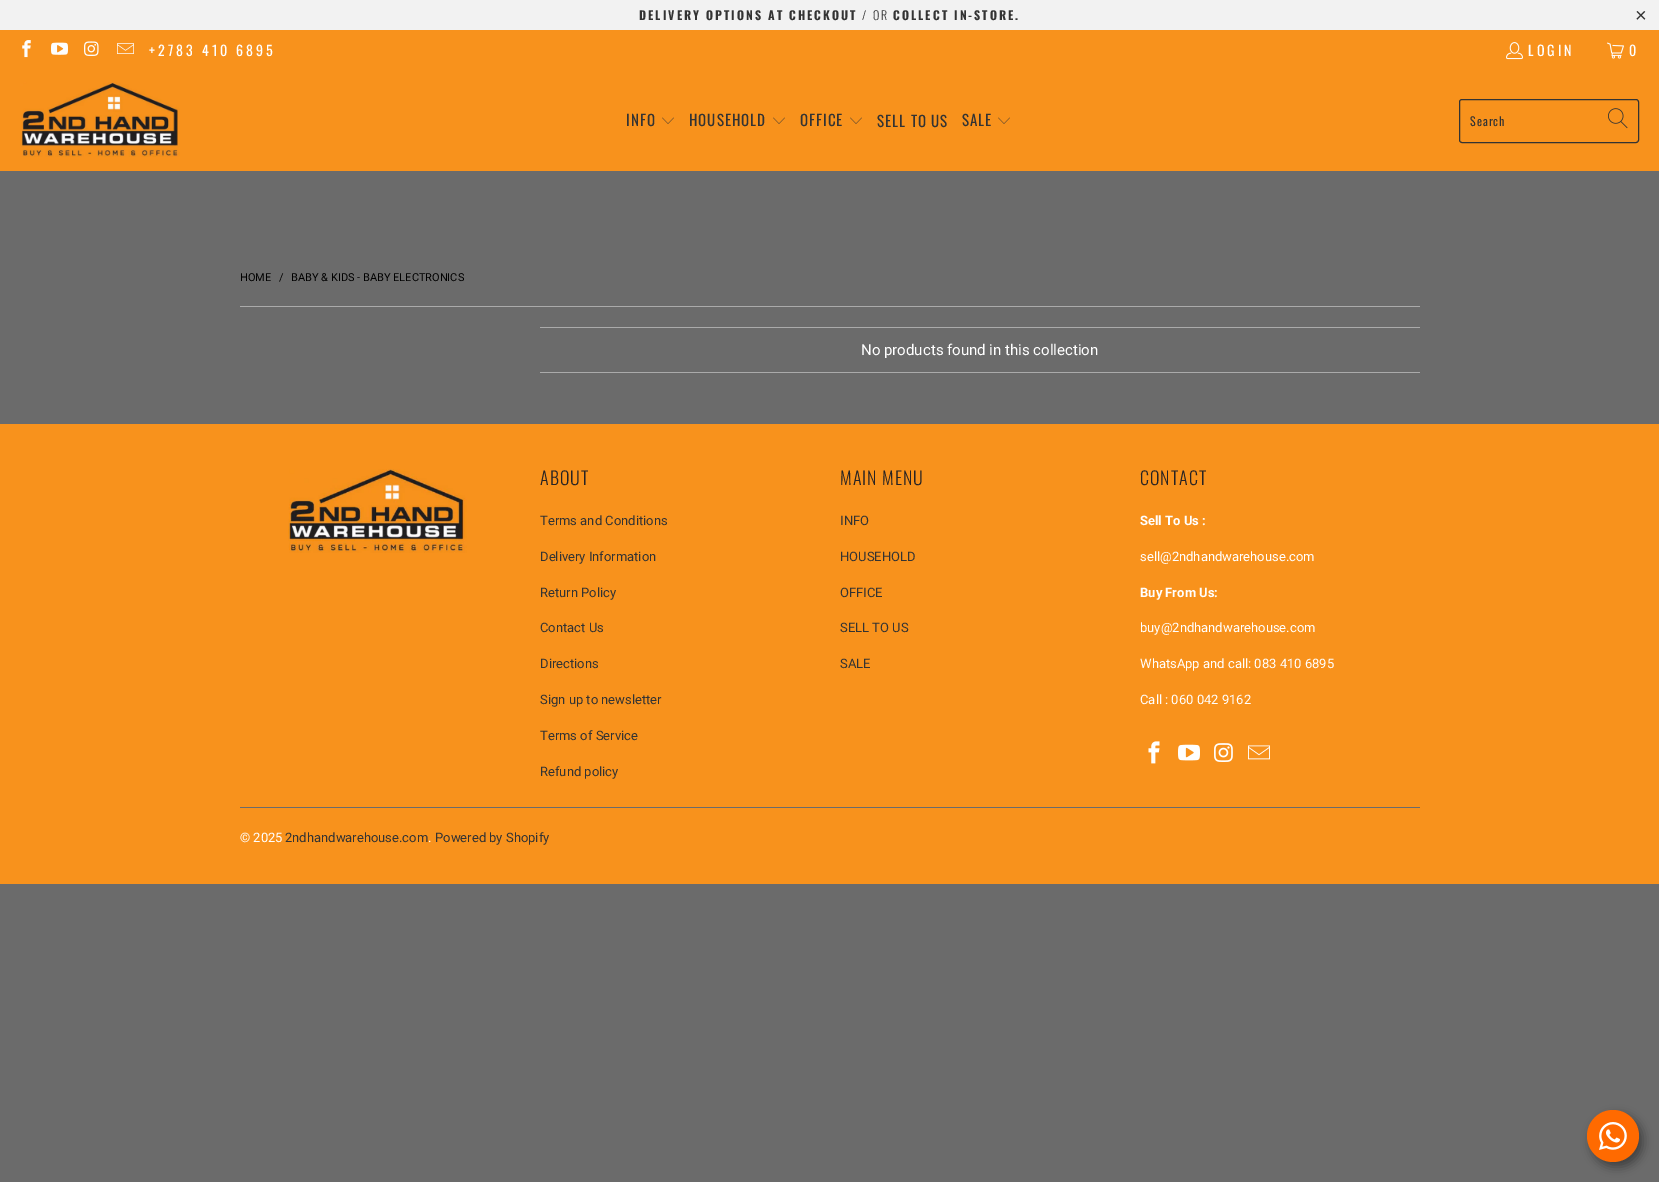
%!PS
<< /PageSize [1659 1182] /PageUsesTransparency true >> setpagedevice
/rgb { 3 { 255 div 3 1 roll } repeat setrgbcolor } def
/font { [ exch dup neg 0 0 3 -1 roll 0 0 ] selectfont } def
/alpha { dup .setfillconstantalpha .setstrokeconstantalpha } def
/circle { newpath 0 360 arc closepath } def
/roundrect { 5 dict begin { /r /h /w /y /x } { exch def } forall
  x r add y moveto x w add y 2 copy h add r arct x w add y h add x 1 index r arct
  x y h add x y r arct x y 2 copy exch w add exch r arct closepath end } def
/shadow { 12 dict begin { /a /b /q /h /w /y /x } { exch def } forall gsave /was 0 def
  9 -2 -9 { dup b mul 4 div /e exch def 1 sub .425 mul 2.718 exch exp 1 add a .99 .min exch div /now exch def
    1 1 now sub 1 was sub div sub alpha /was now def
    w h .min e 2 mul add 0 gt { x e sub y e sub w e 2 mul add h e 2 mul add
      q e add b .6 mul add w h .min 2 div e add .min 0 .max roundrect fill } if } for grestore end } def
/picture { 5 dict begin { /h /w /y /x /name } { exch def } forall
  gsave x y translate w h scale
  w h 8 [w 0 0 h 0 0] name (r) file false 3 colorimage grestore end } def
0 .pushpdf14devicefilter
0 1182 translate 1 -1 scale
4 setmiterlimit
107 107 107 rgb
0 0 1659 1182 rectfill
242 242 242 rgb
0 0 1659 30 rectfill
248 146 28 rgb
0 30 1659 141 rectfill
(img/1.rgb) 22 40 9 18 picture
(img/2.rgb) 51 42 17 13 picture
(img/3.rgb) 84 41 15 15 picture
(img/4.rgb) 117 43 17 11 picture
(img/5.rgb) 1506 42 17 18 picture
(img/6.rgb) 1607 42 17 17 picture
(img/7.rgb) 20 82 160 75 picture
(img/8.rgb) 662 117 12 7 picture
(img/8.rgb) 773 117 12 7 picture
(img/8.rgb) 850 117 12 7 picture
(img/8.rgb) 998 117 12 7 picture
51 51 51 rgb
1459.5 99.5 179 43 2.5 roundrect stroke
(img/9.rgb) 1608 108 20 21 picture
[
  [240 306 1180 1 170 170 170]
  [540 327 880 1 170 170 170]
  [540 372 880 1 170 170 170]
  [0 424 1659 460 248 146 28]
] { aload pop rgb rectfill } forall
(img/10.rgb) 288 469 179 84 picture
(img/11.rgb) 1148 741 12 23 picture
(img/12.rgb) 1178 744 22 17 picture
(img/13.rgb) 1214 743 19 19 picture
(img/14.rgb) 1248 745 22 15 picture
107 107 107 rgb
240 807 1180 1 rectfill
0 0 0 rgb
1591 1115 52 52 26 5 0.4 shadow
255 106 0 rgb
1613 1136 26 circle fill
(img/15.rgb) 1599 1122 28 28 picture
/Oswald-Bold 12 font
51 51 51 rgb
639 20 moveto 2 0 (DELIVERY OPTIONS AT CHECKOUT) ashow
/Oswald-Light 12 font
862 20 moveto 2 0 (/ OR) ashow
/Oswald-Bold 12 font
893 20 moveto 2 0 (COLLECT IN-STORE.) ashow
/LiberationSans-Regular 20 font
1635 22 moveto 2 0 (×) ashow
/Oswald-Regular 14 font
255 255 255 rgb
149 56 moveto 3 0 (+2783 410 6895) ashow
1528 56 moveto 3 0 (LOGIN) ashow
1629 56 moveto 3 0 (0) ashow
/Oswald-Regular 15 font
51 51 51 rgb
626 126 moveto 1 0 (INFO) ashow
689 126 moveto 1 0 (HOUSEHOLD) ashow
800 126 moveto 1 0 (OFFICE) ashow
877 127 moveto 1 0 (SELL TO US) ashow
962 126 moveto 1 0 (SALE) ashow
/Oswald-Regular 12 font
1470 126 moveto 1 0 (Search) ashow
/Roboto-Regular 11 font
0 0 0 rgb
[
  [(HOME) 240 281]
  [(/) 279 281]
  [(BABY & KIDS - BABY ELECTRONICS) 291 281]
] { aload pop moveto show } forall
/Roboto-Regular 15 font
255 255 255 rgb
861 355 moveto (No products found in this collection) show
/Oswald-Light 18 font
40 35 35 rgb
540 485 moveto 1 0 (ABOUT) ashow
/Roboto-Regular 13 font
51 51 51 rgb
[
  [(Terms and Conditions) 540 525]
  [(Delivery Information) 540 561]
  [(Return Policy) 540 597]
  [(Contact Us) 540 632]
  [(Directions) 540 668]
  [(Sign up to newsletter) 540 704]
  [(Terms of Service) 540 740]
  [(Refund policy) 540 776]
] { aload pop moveto show } forall
/Oswald-Light 18 font
40 35 35 rgb
840 485 moveto 1 0 (MAIN MENU) ashow
/Roboto-Regular 13 font
51 51 51 rgb
[
  [(INFO) 840 525]
  [(HOUSEHOLD) 840 561]
  [(OFFICE) 840 597]
  [(SELL TO US) 840 632]
  [(SALE) 840 668]
] { aload pop moveto show } forall
/Oswald-Light 18 font
40 35 35 rgb
1140 485 moveto 1 0 (CONTACT) ashow
/Roboto-Bold 13 font
255 255 255 rgb
1140 525 moveto (Sell To Us :) show
/Roboto-Regular 13 font
1140 561 moveto (sell@2ndhandwarehouse.com) show
/Roboto-Bold 13 font
1140 597 moveto (Buy From Us:) show
/Roboto-Regular 13 font
[
  [(buy@2ndhandwarehouse.com) 1140 632]
  [(WhatsApp and call: 083 410 6895) 1140 668]
  [(Call : 060 042 9162) 1140 704]
  [(© 2025) 240 842]
] { aload pop moveto show } forall
51 51 51 rgb
285 842 moveto (2ndhandwarehouse.com) show
255 255 255 rgb
428 842 moveto (.) show
51 51 51 rgb
435 842 moveto (Powered by Shopify) show
.poppdf14devicefilter showpage
